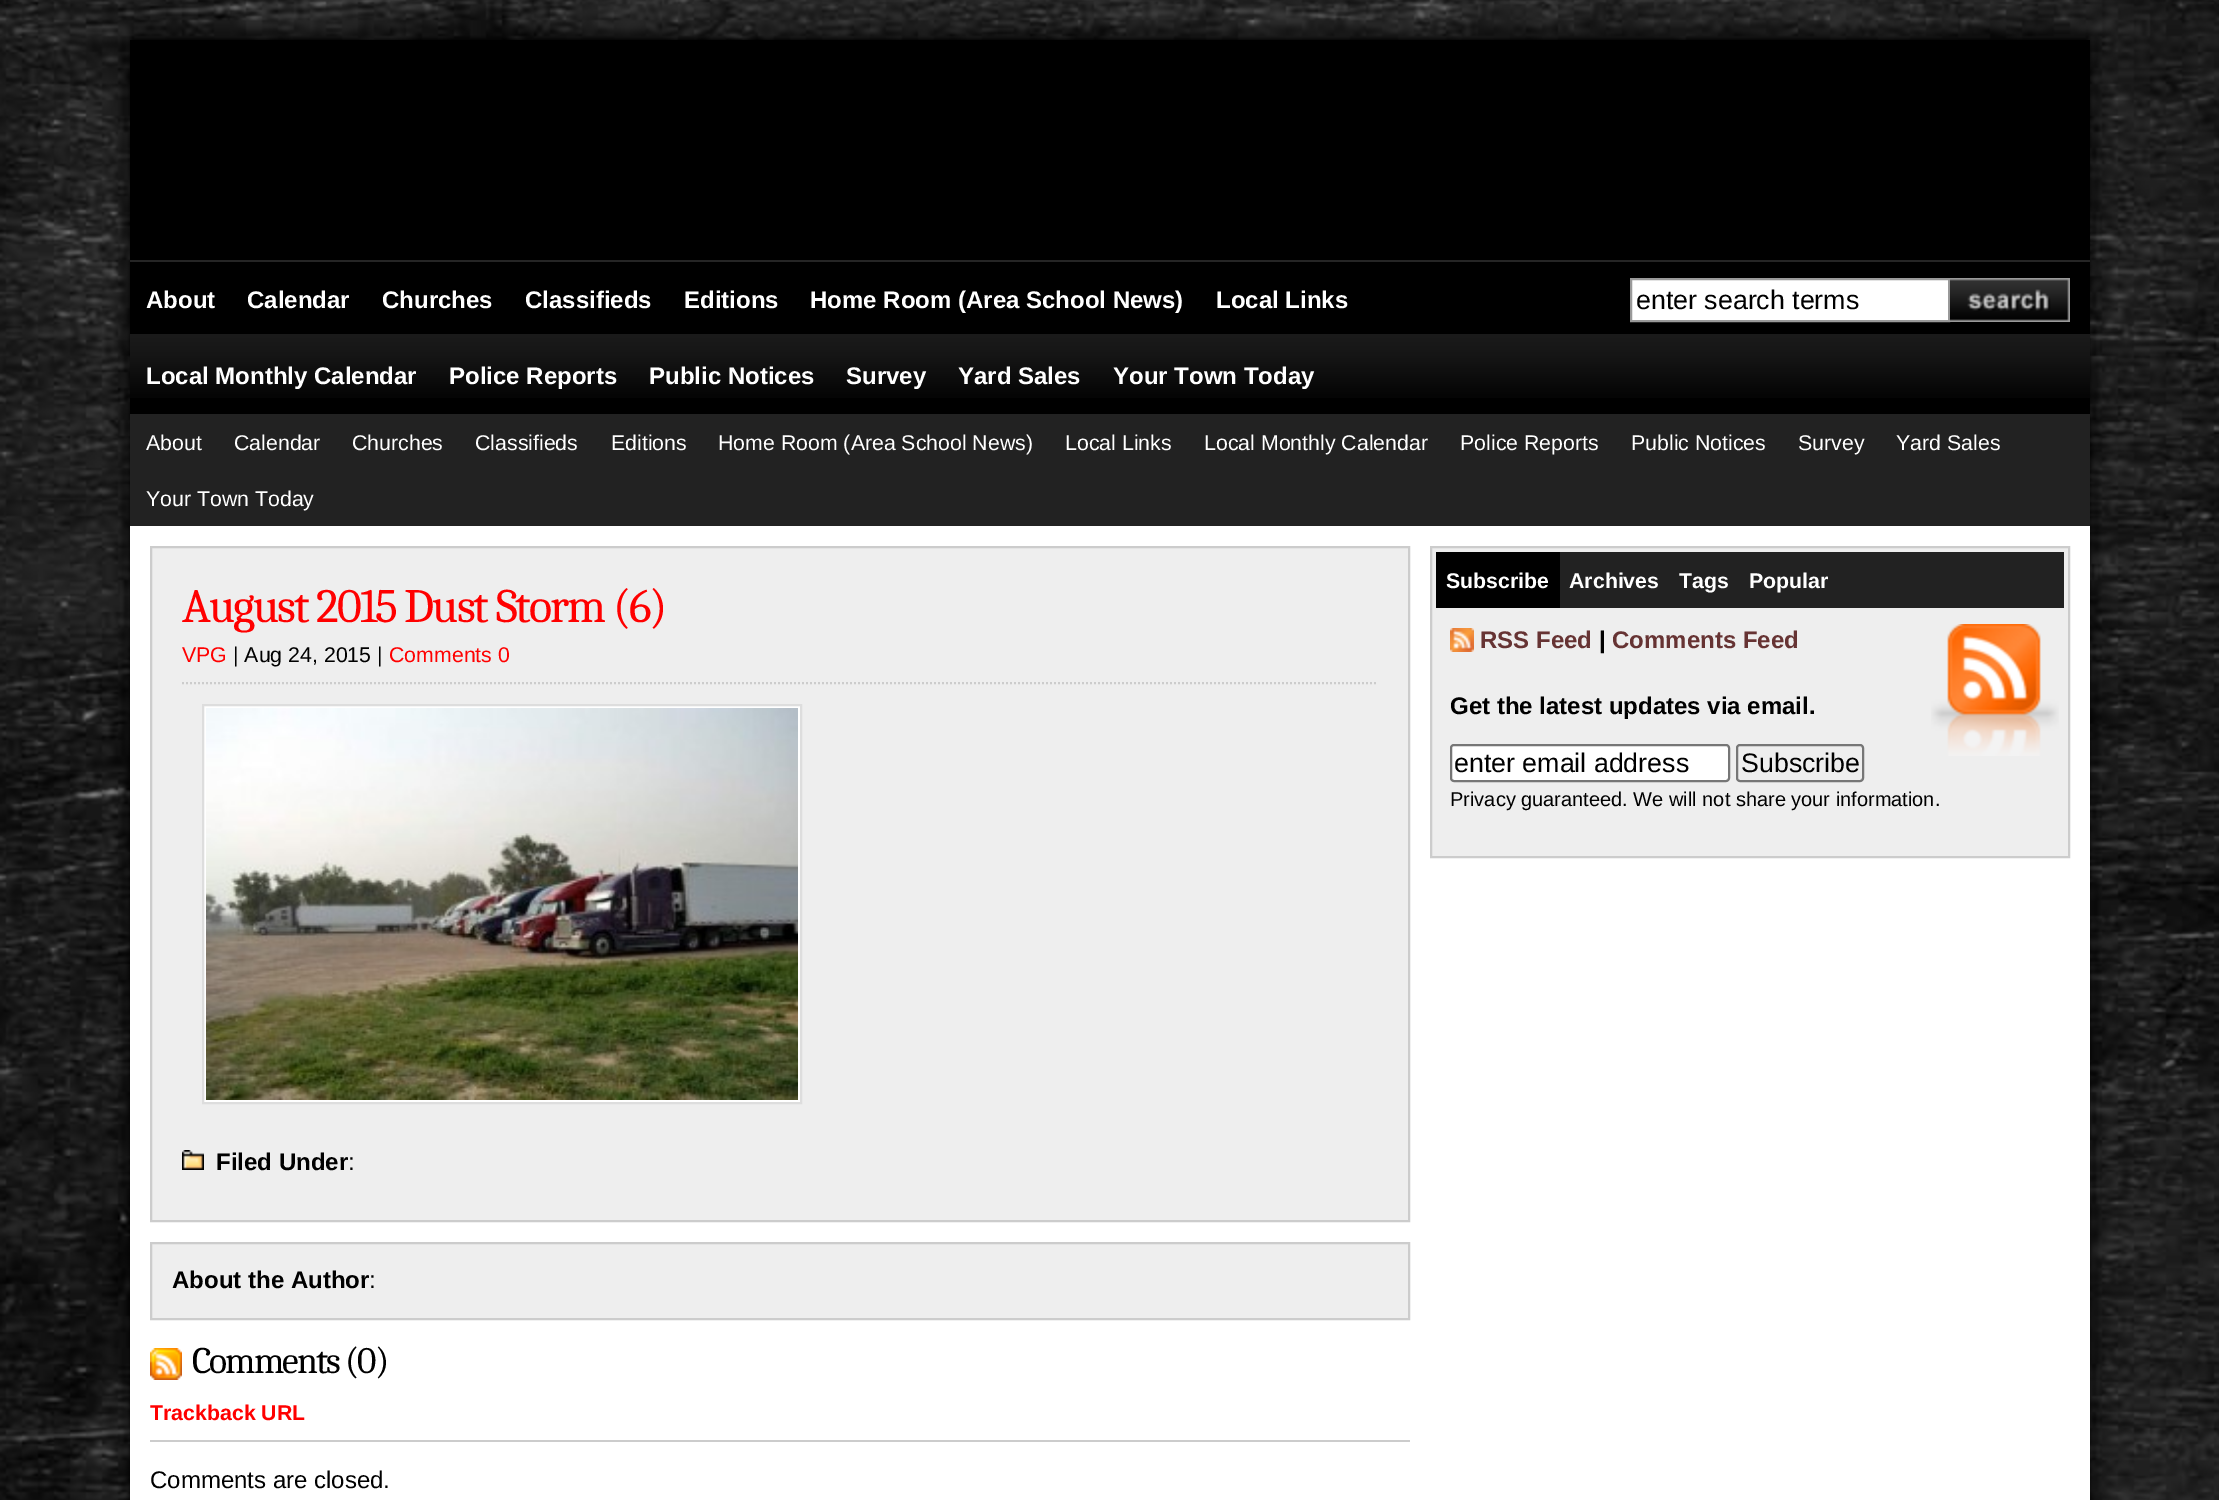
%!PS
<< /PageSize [2219 1500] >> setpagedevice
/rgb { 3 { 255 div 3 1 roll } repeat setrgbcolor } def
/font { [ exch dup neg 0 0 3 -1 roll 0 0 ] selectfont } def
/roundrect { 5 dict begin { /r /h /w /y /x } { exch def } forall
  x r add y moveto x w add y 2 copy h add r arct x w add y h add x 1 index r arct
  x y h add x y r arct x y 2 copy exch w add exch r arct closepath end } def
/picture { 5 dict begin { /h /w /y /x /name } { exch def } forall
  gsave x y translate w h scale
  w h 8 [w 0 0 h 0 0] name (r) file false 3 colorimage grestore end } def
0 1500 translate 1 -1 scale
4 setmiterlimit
255 255 255 rgb
0 0 2219 1500 rectfill
(img/1.rgb) 0 0 2219 1500 picture
[
  [130 526 1960 974 255 255 255]
  [130 40 1960 220 0 0 0]
  [130 262 1960 152 0 0 0]
] { aload pop rgb rectfill } forall
(img/2.rgb) 130 334 1960 64 picture
37 37 37 rgb
130 260 1960 2 rectfill
255 255 255 rgb
1631 279 moveto 1949 279 lineto 1949 321 lineto 1631 321 lineto closepath gsave fill grestore
153 153 153 rgb
2 setlinewidth
stroke
(img/3.rgb) 1950 278 120 44 picture
34 34 34 rgb
130 414 1960 112 rectfill
238 238 238 rgb
151 547 moveto 1409 547 lineto 1409 1221 lineto 151 1221 lineto closepath gsave fill grestore
204 204 204 rgb
stroke
[2 2] 0 setdash
182 683 moveto 1378 683 lineto stroke
255 255 255 rgb
203 705 moveto 801 705 lineto 801 1103 lineto 203 1103 lineto closepath gsave fill grestore
221 221 221 rgb
[] 0 setdash
stroke
(img/4.rgb) 206 708 592 392 picture
(img/5.rgb) 182 1150 22 20 picture
238 238 238 rgb
151 1243 moveto 1409 1243 lineto 1409 1319 lineto 151 1319 lineto closepath gsave fill grestore
204 204 204 rgb
stroke
(img/6.rgb) 150 1348 32 32 picture
150 1440 1260 2 rectfill
238 238 238 rgb
1431 547 moveto 2069 547 lineto 2069 857 lineto 1431 857 lineto closepath gsave fill grestore
204 204 204 rgb
stroke
34 34 34 rgb
1560 552 504 56 rectfill
0 0 0 rgb
1436 552 124 56 rectfill
(img/7.rgb) 1931 624 128 132 picture
(img/8.rgb) 1450 628 24 24 picture
255 255 255 rgb
1451 745 278 36 3 roundrect gsave fill grestore
118 118 118 rgb
stroke
1737 745 126 36 3 roundrect stroke
/LiberationSans-Bold 24 font
255 255 255 rgb
[
  [(About) 146 308]
  [(Calendar) 247 308]
  [(Churches) 382 308]
  [(Classifieds) 525 308]
  [(Editions) 684 308]
  [(Home Room \(Area School News\)) 810 308]
  [(Local Links) 1216 308]
  [(Local Monthly Calendar) 146 384]
  [(Police Reports) 449 384]
  [(Public Notices) 649 384]
  [(Survey) 846 384]
  [(Yard Sales) 958 384]
  [(Your Town Today) 1113 384]
] { aload pop moveto show } forall
/LiberationSans-Regular 26.75 font
0 0 0 rgb
1636 309 moveto (enter search terms) show
/LiberationSans-Regular 21.3 font
255 255 255 rgb
[
  [(About) 146 450]
  [(Calendar) 234 450]
  [(Churches) 352 450]
  [(Classifieds) 475 450]
  [(Editions) 611 450]
  [(Home Room \(Area School News\)) 718 450]
  [(Local Links) 1065 450]
  [(Local Monthly Calendar) 1204 450]
  [(Police Reports) 1460 450]
  [(Public Notices) 1631 450]
  [(Survey) 1798 450]
  [(Yard Sales) 1896 450]
  [(Your Town Today) 146 506]
] { aload pop moveto show } forall
/Caladea-Regular 48 font
255 0 0 rgb
182 622 moveto -2 0 (August 2015 Dust Storm \(6\)) ashow
/LiberationSans-Regular 21.3 font
182 662 moveto (VPG) show
0 0 0 rgb
233 662 moveto (| Aug 24, 2015 |) show
255 0 0 rgb
389 662 moveto (Comments 0) show
/LiberationSans-Bold 24 font
0 0 0 rgb
216 1170 moveto (Filed Under) show
/LiberationSans-Regular 24 font
348 1170 moveto (:) show
/LiberationSans-Bold 24 font
172 1288 moveto (About the Author) show
/LiberationSans-Regular 24 font
369 1288 moveto (:) show
/Caladea-Regular 37.5 font
192 1373 moveto -2 0 (Comments \(0\)) ashow
/LiberationSans-Bold 21.3 font
255 0 0 rgb
150 1420 moveto (Trackback URL) show
/LiberationSans-Regular 24 font
0 0 0 rgb
150 1488 moveto (Comments are closed.) show
/LiberationSans-Bold 21.3 font
255 255 255 rgb
[
  [(Subscribe) 1446 588]
  [(Archives) 1569 588]
  [(Tags) 1679 588]
  [(Popular) 1749 588]
] { aload pop moveto show } forall
/LiberationSans-Bold 24 font
102 51 51 rgb
1480 648 moveto (RSS Feed) show
0 0 0 rgb
1599 648 moveto (|) show
102 51 51 rgb
1612 648 moveto (Comments Feed) show
0 0 0 rgb
1450 714 moveto (Get the latest updates via email.) show
/LiberationSans-Regular 26.75 font
1454 772 moveto (enter email address) show
1741 772 moveto (Subscribe) show
/LiberationSans-Regular 20 font
1450 806 moveto (Privacy guaranteed. We will not share your information.) show
showpage
